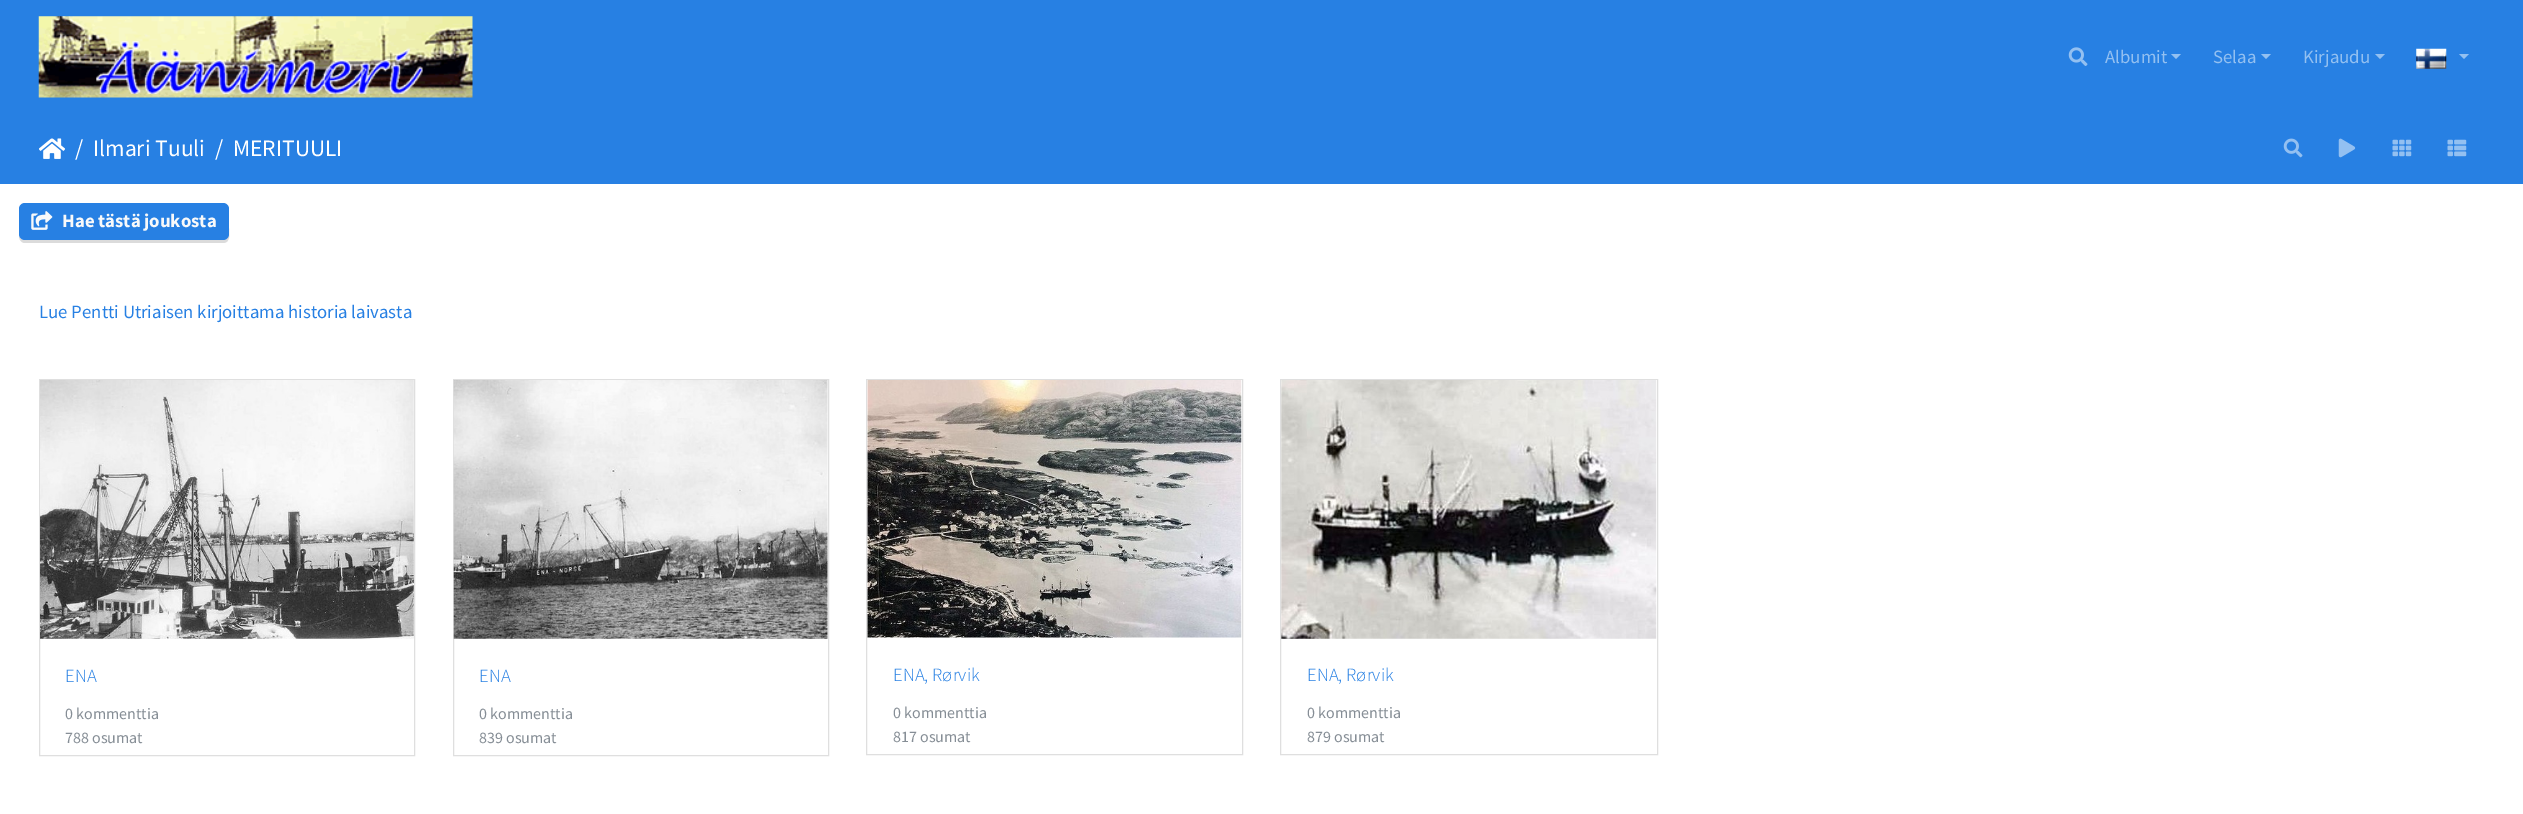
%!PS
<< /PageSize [2523 814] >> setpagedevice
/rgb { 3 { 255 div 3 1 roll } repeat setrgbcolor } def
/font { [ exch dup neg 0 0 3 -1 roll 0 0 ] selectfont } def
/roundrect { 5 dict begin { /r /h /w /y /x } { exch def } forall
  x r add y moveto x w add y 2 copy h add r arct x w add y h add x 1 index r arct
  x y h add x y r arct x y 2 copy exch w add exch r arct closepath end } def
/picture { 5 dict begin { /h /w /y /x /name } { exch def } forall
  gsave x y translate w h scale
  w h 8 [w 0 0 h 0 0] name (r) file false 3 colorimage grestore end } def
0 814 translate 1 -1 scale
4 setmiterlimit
255 255 255 rgb
0 0 2523 814 rectfill
39 128 227 rgb
0 0 2523 184 rectfill
(img/1.rgb) 38 16 435 82 picture
(img/2.rgb) 2068 47 20 19 picture
147 192 241 rgb
2171 54 moveto 2181 54 lineto 2176 59 lineto closepath fill
2261 54 moveto 2271 54 lineto 2266 59 lineto closepath fill
2375 54 moveto 2385 54 lineto 2380 59 lineto closepath fill
(img/3.rgb) 2416 48 31 21 picture
2459 54 moveto 2469 54 lineto 2464 59 lineto closepath fill
(img/4.rgb) 39 138 26 21 picture
(img/5.rgb) 2283 138 20 20 picture
(img/6.rgb) 2338 138 18 20 picture
(img/7.rgb) 2392 139 20 18 picture
(img/8.rgb) 2447 139 20 18 picture
219 219 219 rgb
19 236 moveto 19 239 21 243 25 243 curveto 223 243 lineto 231 243 229 233 229 228 curveto 229 209 lineto 229 234 lineto 229 237 226 240 222 240 curveto 25 240 lineto 22 240 20 238 19 236 curveto closepath fill
39 128 227 rgb
19 203 210 37 6 roundrect fill
(img/9.rgb) 31 211 22 19 picture
223 223 223 rgb
39.5 379.5 375 376 rectstroke
(img/10.rgb) 40 380 374 259 picture
453.5 379.5 375 376 rectstroke
(img/11.rgb) 453 380 375 259 picture
866.5 379.5 376 375 rectstroke
(img/12.rgb) 867 380 375 258 picture
1280.5 379.5 377 375 rectstroke
(img/13.rgb) 1281 380 376 259 picture
/SourceSansPro-Regular 18.75 font
147 192 241 rgb
[
  [(Albumit) 2105 63]
  [(Selaa) 2213 63]
  [(Kirjaudu) 2303 63]
] { aload pop moveto show } forall
/SourceSansPro-Regular 23.5 font
255 255 255 rgb
[
  [(/) 75 156]
  [(Ilmari Tuuli) 93 156]
  [(/) 215 156]
  [(MERITUULI) 233 156]
] { aload pop moveto show } forall
/SourceSansPro-Bold 18.75 font
248 249 250 rgb
62 227 moveto (Hae tästä joukosta) show
/SourceSansPro-Regular 18.75 font
39 128 227 rgb
39 318 moveto (Lue Pentti Utriaisen kirjoittama historia laivasta) show
/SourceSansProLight-Light 18.75 font
65 682 moveto (ENA) show
/SourceSansPro-Regular 16 font
134 142 150 rgb
65 719 moveto (0 kommenttia) show
65 743 moveto (788 osumat) show
/SourceSansProLight-Light 18.75 font
39 128 227 rgb
479 682 moveto (ENA) show
/SourceSansPro-Regular 16 font
134 142 150 rgb
479 719 moveto (0 kommenttia) show
479 743 moveto (839 osumat) show
/SourceSansProLight-Light 18.75 font
39 128 227 rgb
893 681 moveto (ENA, Rørvik) show
/SourceSansPro-Regular 16 font
134 142 150 rgb
893 718 moveto (0 kommenttia) show
893 742 moveto (817 osumat) show
/SourceSansProLight-Light 18.75 font
39 128 227 rgb
1307 681 moveto (ENA, Rørvik) show
/SourceSansPro-Regular 16 font
134 142 150 rgb
1307 718 moveto (0 kommenttia) show
1307 742 moveto (879 osumat) show
showpage
